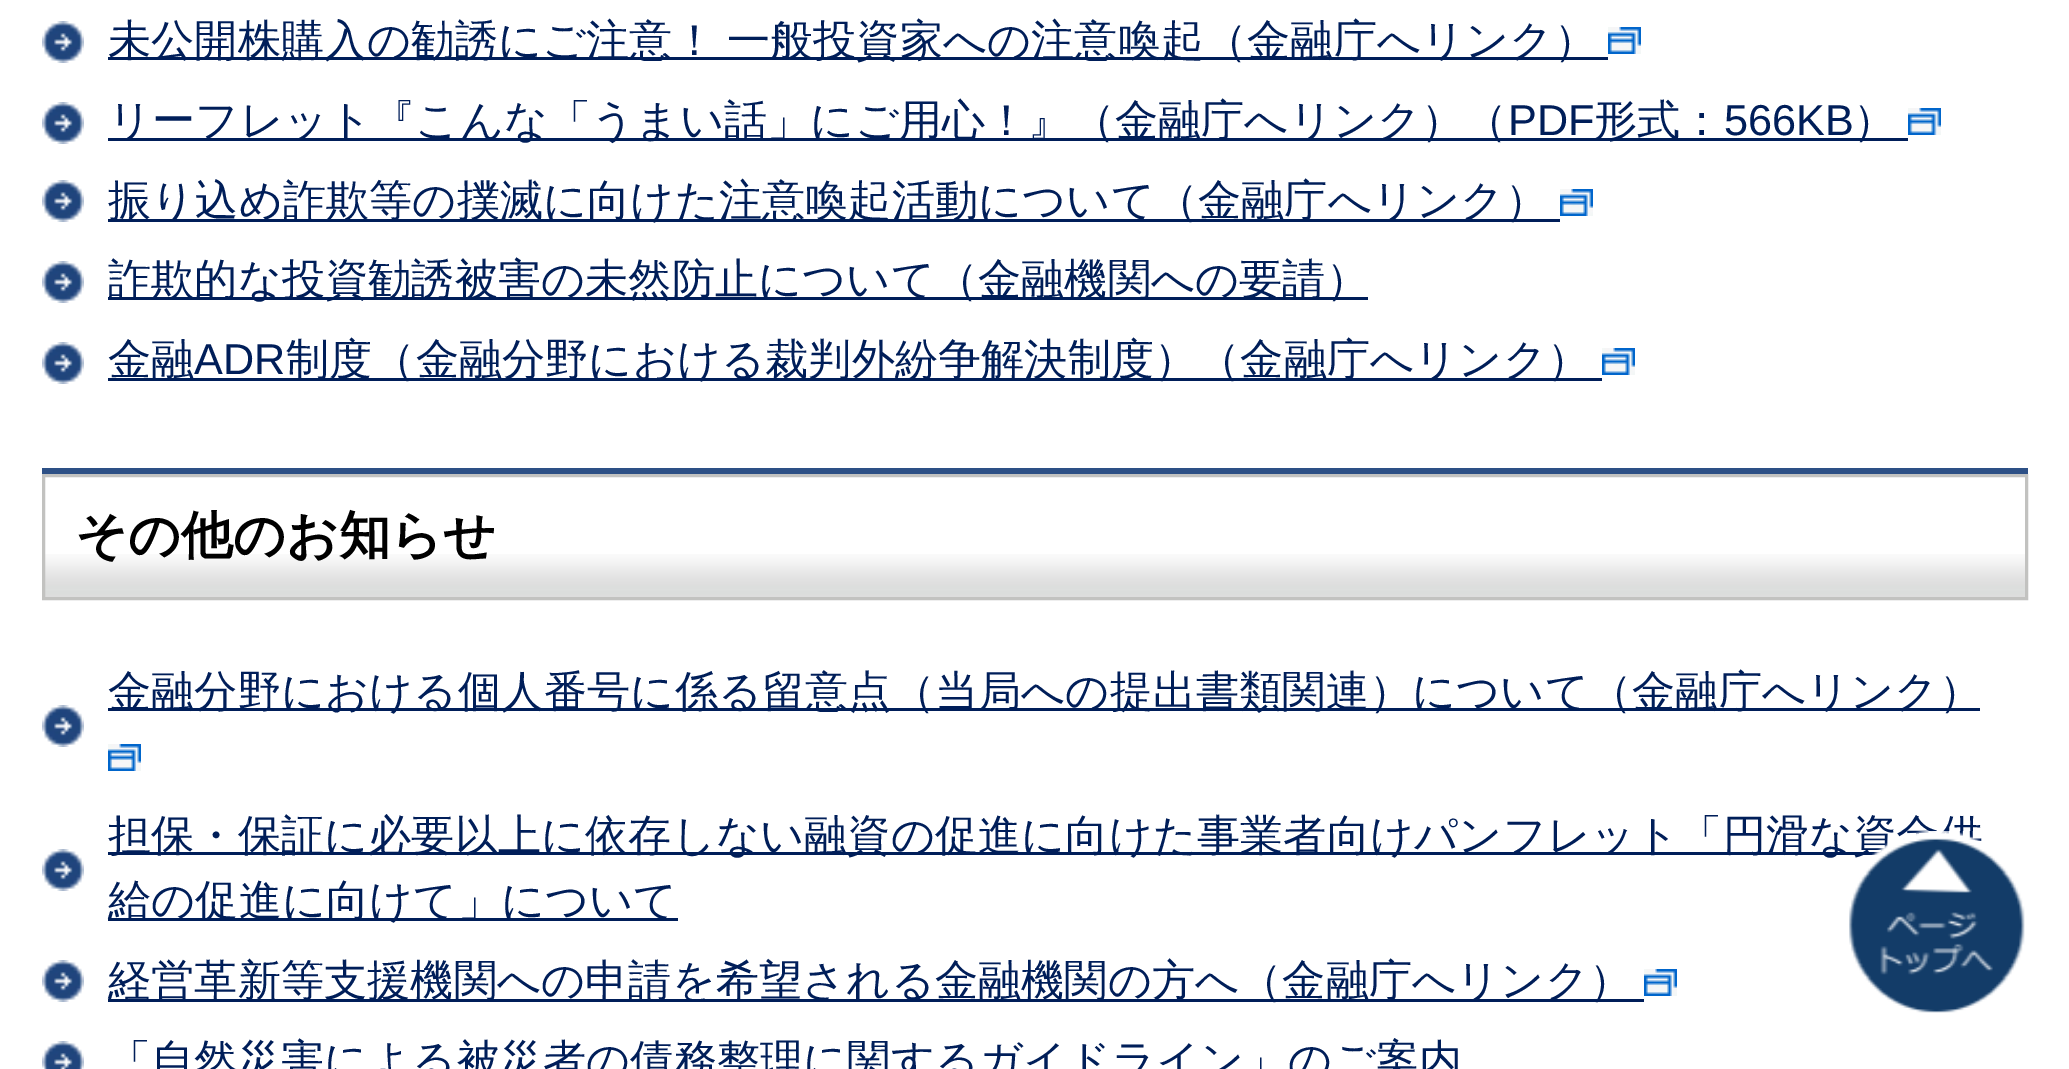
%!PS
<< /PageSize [2069 1069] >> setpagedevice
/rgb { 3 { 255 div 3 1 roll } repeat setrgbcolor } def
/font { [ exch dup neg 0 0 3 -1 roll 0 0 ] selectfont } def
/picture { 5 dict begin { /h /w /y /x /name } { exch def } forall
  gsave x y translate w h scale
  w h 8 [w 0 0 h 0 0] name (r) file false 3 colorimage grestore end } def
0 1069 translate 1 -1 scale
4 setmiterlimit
255 255 255 rgb
0 0 2069 1069 rectfill
(img/1.rgb) 42 21 42 42 picture
0 30 89 rgb
108 57 1500 3 rectfill
(img/2.rgb) 1608 27 33 27 picture
(img/1.rgb) 42 102 42 42 picture
108 138 1800 3 rectfill
(img/3.rgb) 1908 108 33 27 picture
(img/1.rgb) 42 180 42 42 picture
108 219 1452 3 rectfill
(img/2.rgb) 1560 189 33 27 picture
(img/1.rgb) 42 261 42 42 picture
108 297 1260 3 rectfill
(img/1.rgb) 42 342 42 42 picture
108 378 1494 3 rectfill
(img/2.rgb) 1602 348 33 27 picture
45 80 134 rgb
42 468 1986 6 rectfill
(img/4.rgb) 45 554 1980 43 picture
194 194 192 rgb
3 setlinewidth
43.5 475.5 1983 123 rectstroke
(img/5.rgb) 42 705 42 42 picture
0 30 89 rgb
108 708 1872 3 rectfill
(img/2.rgb) 108 744 33 27 picture
(img/1.rgb) 42 849 42 42 picture
108 852 1774 3 rectfill
108 918 570 3 rectfill
(img/5.rgb) 42 960 42 42 picture
108 999 1536 3 rectfill
(img/2.rgb) 1644 969 33 27 picture
(img/6.rgb) 42 1041 42 28 picture
/WenQuanYiZenHei-Medium 43.2 font
108 55 moveto -2 0 32 (未公開株購入の勧誘にご注意！ 一般投資家への注意喚起（金融庁へリンク）) widthshow
108 135 moveto (リーフレット『こんな「うまい話」にご用心！』（金融庁へリンク）（) show
/LiberationSans-Regular 43.2 font
1508 135 moveto (PDF) show
/WenQuanYiZenHei-Medium 43.2 font
1594 135 moveto (形式：) show
/LiberationSans-Regular 43.2 font
1724 135 moveto (566KB) show
/WenQuanYiZenHei-Medium 43.2 font
[
  [(）) 1853 135]
  [(振り込め詐欺等の撲滅に向けた注意喚起活動について（金融庁へリンク）) 108 215]
  [(詐欺的な投資勧誘被害の未然防止について（金融機関への要請）) 108 294]
  [(金融) 108 374]
] { aload pop moveto show } forall
/LiberationSans-Regular 43.2 font
194 374 moveto (ADR) show
/WenQuanYiZenHei-Medium 43.2 font
286 374 moveto (制度（金融分野における裁判外紛争解決制度）（金融庁へリンク）) show
/WenQuanYiZenHei-Bold 51.75 font
0 0 0 rgb
75 553 moveto (その他のお知らせ) show
/WenQuanYiZenHei-Medium 43.2 font
0 30 89 rgb
[
  [(金融分野における個人番号に係る留意点（当局への提出書類関連）について（金融庁へリンク）) 108 706]
  [(担保・保証に必要以上に依存しない融資の促進に向けた事業者向けパンフレット「円滑な資金供) 108 850]
  [(給の促進に向けて」について) 108 915]
  [(経営革新等支援機関への申請を希望される金融機関の方へ（金融庁へリンク）) 108 995]
  [(「自然災害による被災者の債務整理に関するガイドライン」のご案内) 108 1075]
] { aload pop moveto show } forall
(img/7.rgb) 1849 831 176 182 picture
showpage
